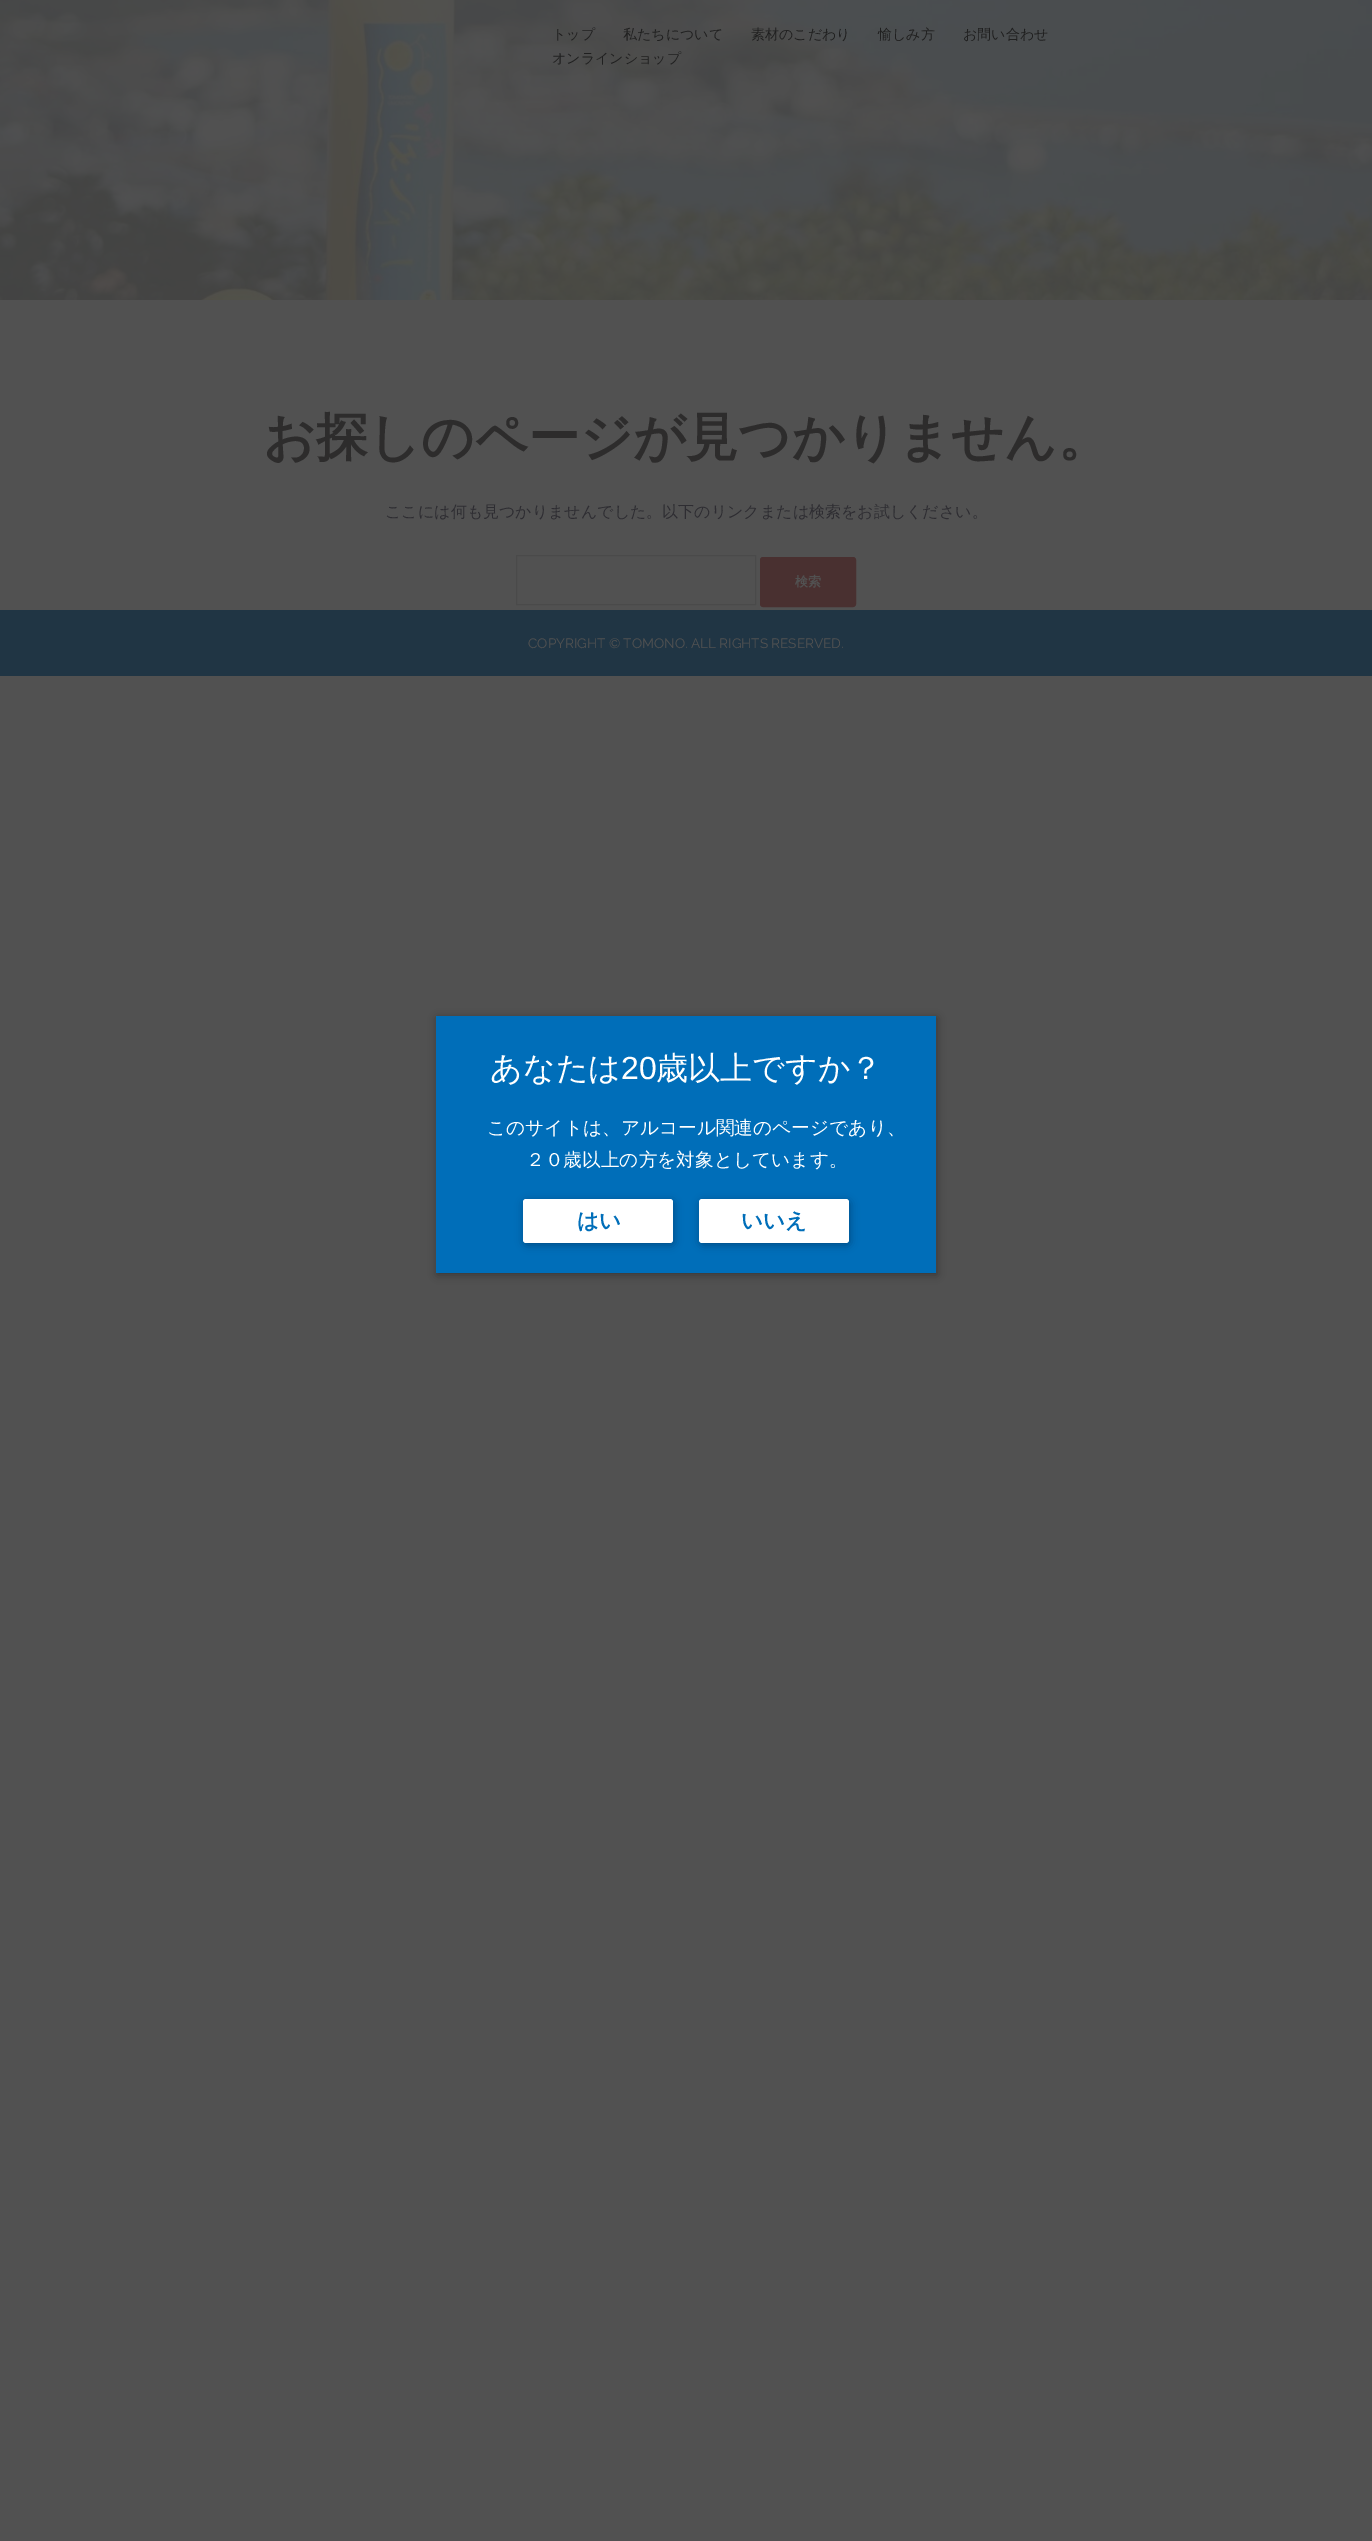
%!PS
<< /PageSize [1372 2541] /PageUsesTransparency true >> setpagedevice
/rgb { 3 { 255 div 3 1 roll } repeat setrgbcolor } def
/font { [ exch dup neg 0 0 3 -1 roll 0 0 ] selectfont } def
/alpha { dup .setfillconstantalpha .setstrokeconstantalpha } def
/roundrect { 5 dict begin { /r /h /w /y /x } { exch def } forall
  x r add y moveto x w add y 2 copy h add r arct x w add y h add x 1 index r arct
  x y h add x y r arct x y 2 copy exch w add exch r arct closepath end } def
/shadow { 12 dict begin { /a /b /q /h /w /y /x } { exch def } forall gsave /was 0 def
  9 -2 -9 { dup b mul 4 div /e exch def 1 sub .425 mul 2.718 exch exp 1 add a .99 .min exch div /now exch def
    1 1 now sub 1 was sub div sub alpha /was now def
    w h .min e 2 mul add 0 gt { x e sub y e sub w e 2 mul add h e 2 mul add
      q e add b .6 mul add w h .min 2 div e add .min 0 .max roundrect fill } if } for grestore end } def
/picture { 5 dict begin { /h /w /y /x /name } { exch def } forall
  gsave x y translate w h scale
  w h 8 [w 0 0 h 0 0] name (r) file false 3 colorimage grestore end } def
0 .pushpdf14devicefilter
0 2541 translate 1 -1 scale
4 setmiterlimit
81 81 81 rgb
0 0 1372 2541 rectfill
(img/1.rgb) 0 0 1372 300 picture
74 74 74 rgb
516.5 555.5 239 49 rectstroke
73 48 48 rgb
760.5 557.5 95 49 2.5 roundrect gsave fill grestore
stroke
32 53 68 rgb
0 610 1372 66 rectfill
0 0 0 rgb
437 1018 500 257 0 4.5 0.3 shadow
0 110 185 rgb
436 1016 500 257 rectfill
0 0 0 rgb
524 1201 150 44 3 4.5 0.3 shadow
255 255 255 rgb
523 1199 150 44 3 roundrect fill
0 0 0 rgb
700 1201 150 44 3 4.5 0.3 shadow
255 255 255 rgb
699 1199 150 44 3 roundrect fill
/WenQuanYiZenHei-Medium 14 font
32 32 32 rgb
[
  [(トップ) 552 39]
  [(私たちについて) 623 39]
  [(素材のこだわり) 751 39]
  [(愉しみ方) 878 39]
  [(お問い合わせ) 963 39]
  [(オンラインショップ) 552 63]
] { aload pop moveto show } forall
/WenQuanYiZenHei-Bold 52 font
45 44 44 rgb
263 455 moveto (お探しのページが見つかりません。) show
/WenQuanYiZenHei-Medium 16 font
46 45 50 rgb
385 517 moveto (ここには何も見つかりませんでした。以下のリンクまたは検索をお試しください。) show
/WenQuanYiZenHei-Bold 13 font
81 81 81 rgb
795 586 moveto (検索) show
/Raleway-Regular 13.6 font
528 648 moveto (COPYRIGHT © TOMONO. ALL RIGHTS RESERVED.) show
/WenQuanYiZenHei-Medium 32 font
255 255 255 rgb
490 1079 moveto (あなたは) show
/LiberationSans-Regular 32 font
621 1079 moveto (20) show
/WenQuanYiZenHei-Medium 32 font
656 1079 moveto (歳以上ですか？) show
/WenQuanYiZenHei-Medium 18.7 font
487 1134 moveto (このサイトは、アルコール関連のページであり、) show
526 1166 moveto (２０歳以上の方を対象としています。) show
/WenQuanYiZenHei-Bold 21.5 font
0 110 185 rgb
577 1228 moveto (はい) show
741 1228 moveto (いいえ) show
.poppdf14devicefilter showpage
